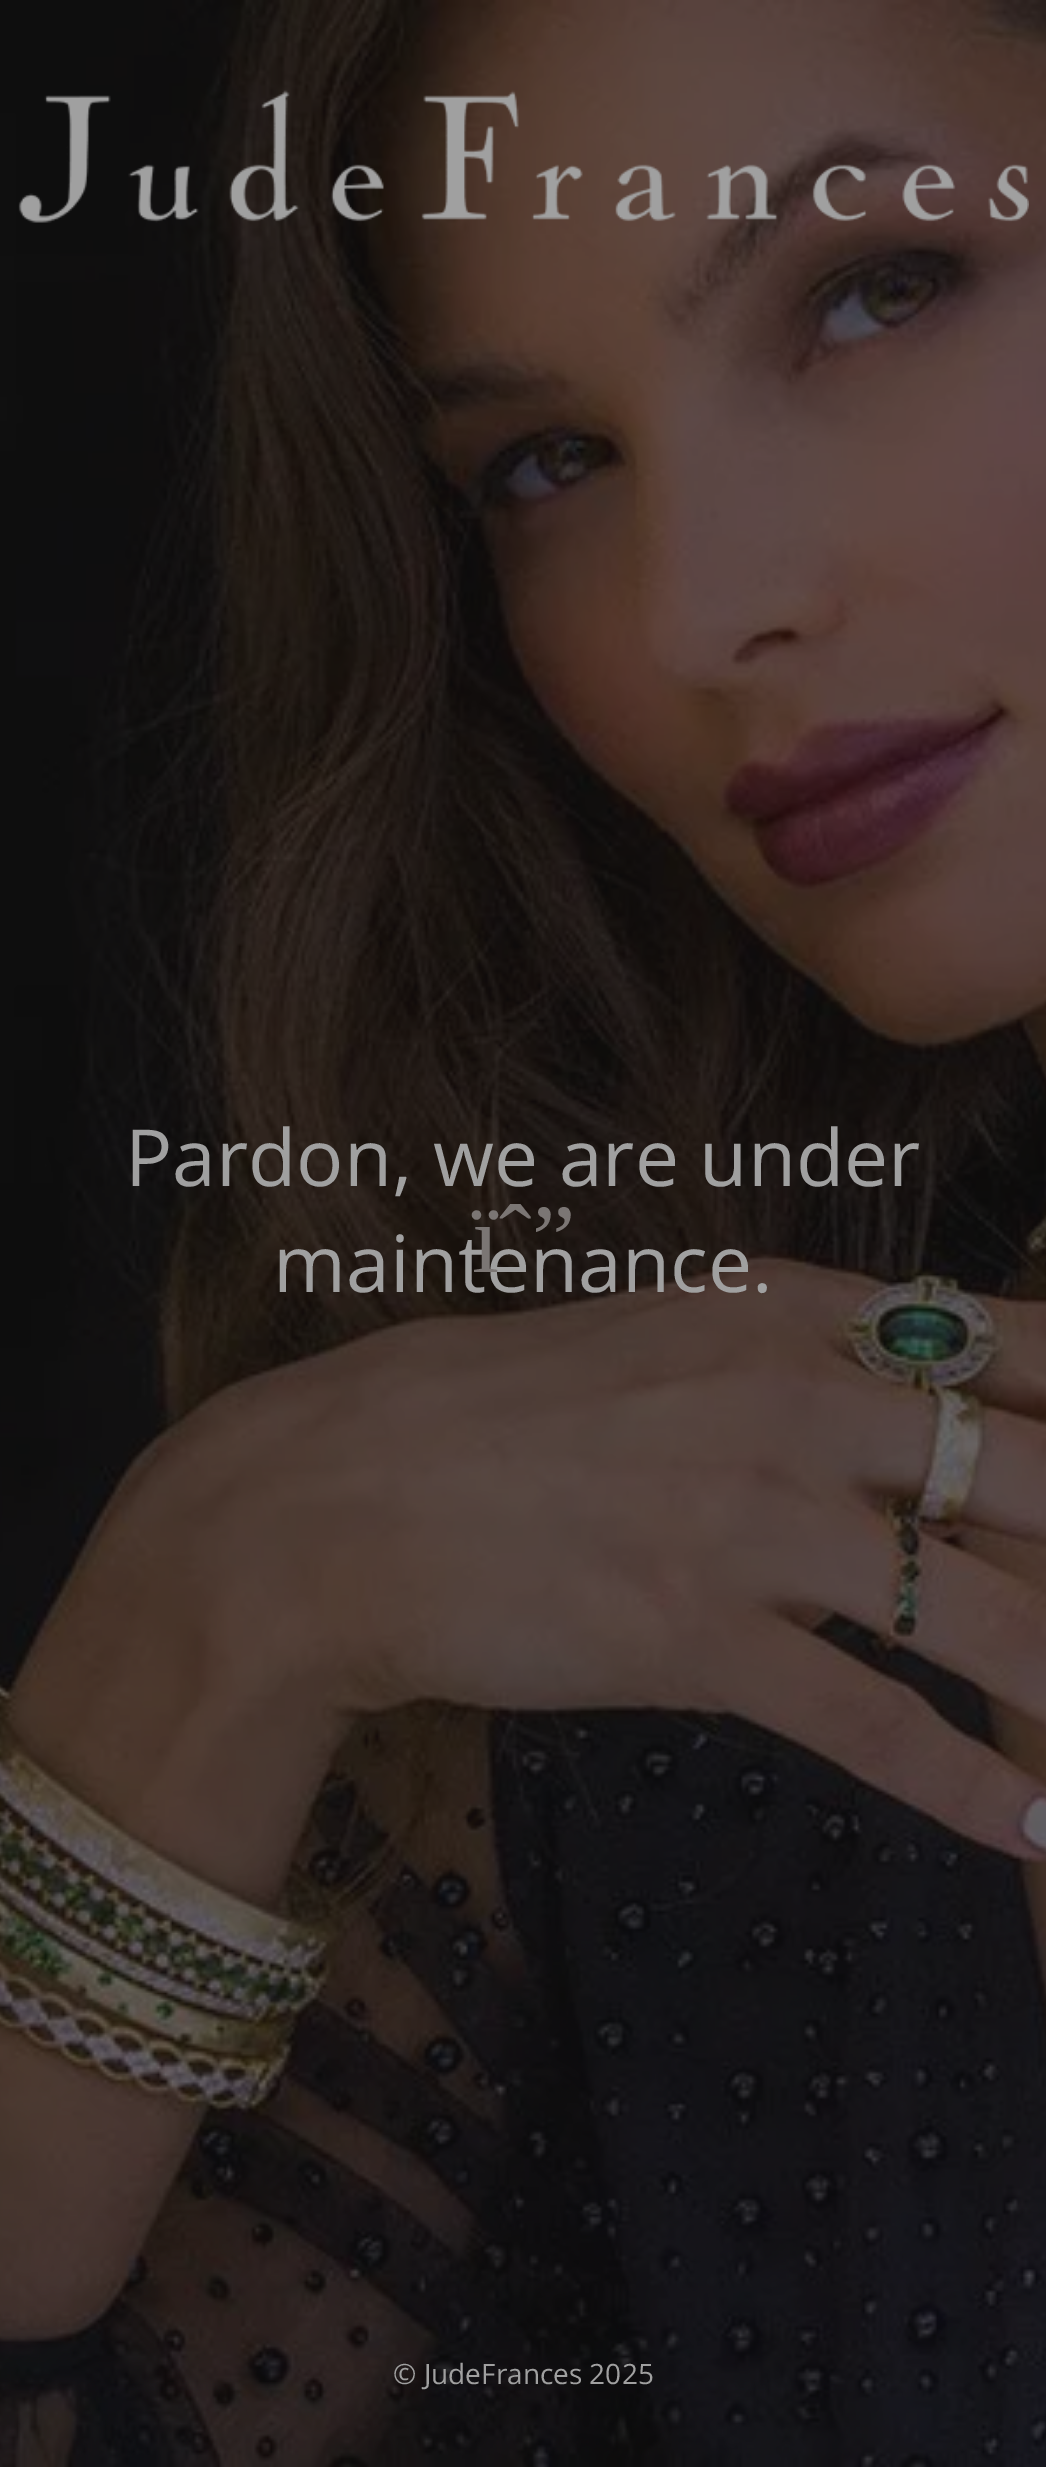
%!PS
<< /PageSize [1046 2467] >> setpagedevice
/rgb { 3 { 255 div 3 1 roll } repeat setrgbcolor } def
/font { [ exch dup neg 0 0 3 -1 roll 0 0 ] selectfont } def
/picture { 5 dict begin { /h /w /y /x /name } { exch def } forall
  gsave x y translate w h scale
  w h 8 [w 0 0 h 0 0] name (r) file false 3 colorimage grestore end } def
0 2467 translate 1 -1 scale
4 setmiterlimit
255 255 255 rgb
0 0 1046 2467 rectfill
(img/1.rgb) 0 0 1046 2467 picture
(img/2.rgb) 18 90 1011 133 picture
/OpenSans-Regular 78.75 font
160 160 160 rgb
125 1186 moveto (Pardon, we are under) show
273 1292 moveto (maintenance.) show
/LiberationSerif-Regular 98 font
123 118 116 rgb
472 1272 moveto (ïˆ”) show
/OpenSans-Regular 28 font
160 160 160 rgb
393 2384 moveto (© JudeFrances 2025) show
showpage
